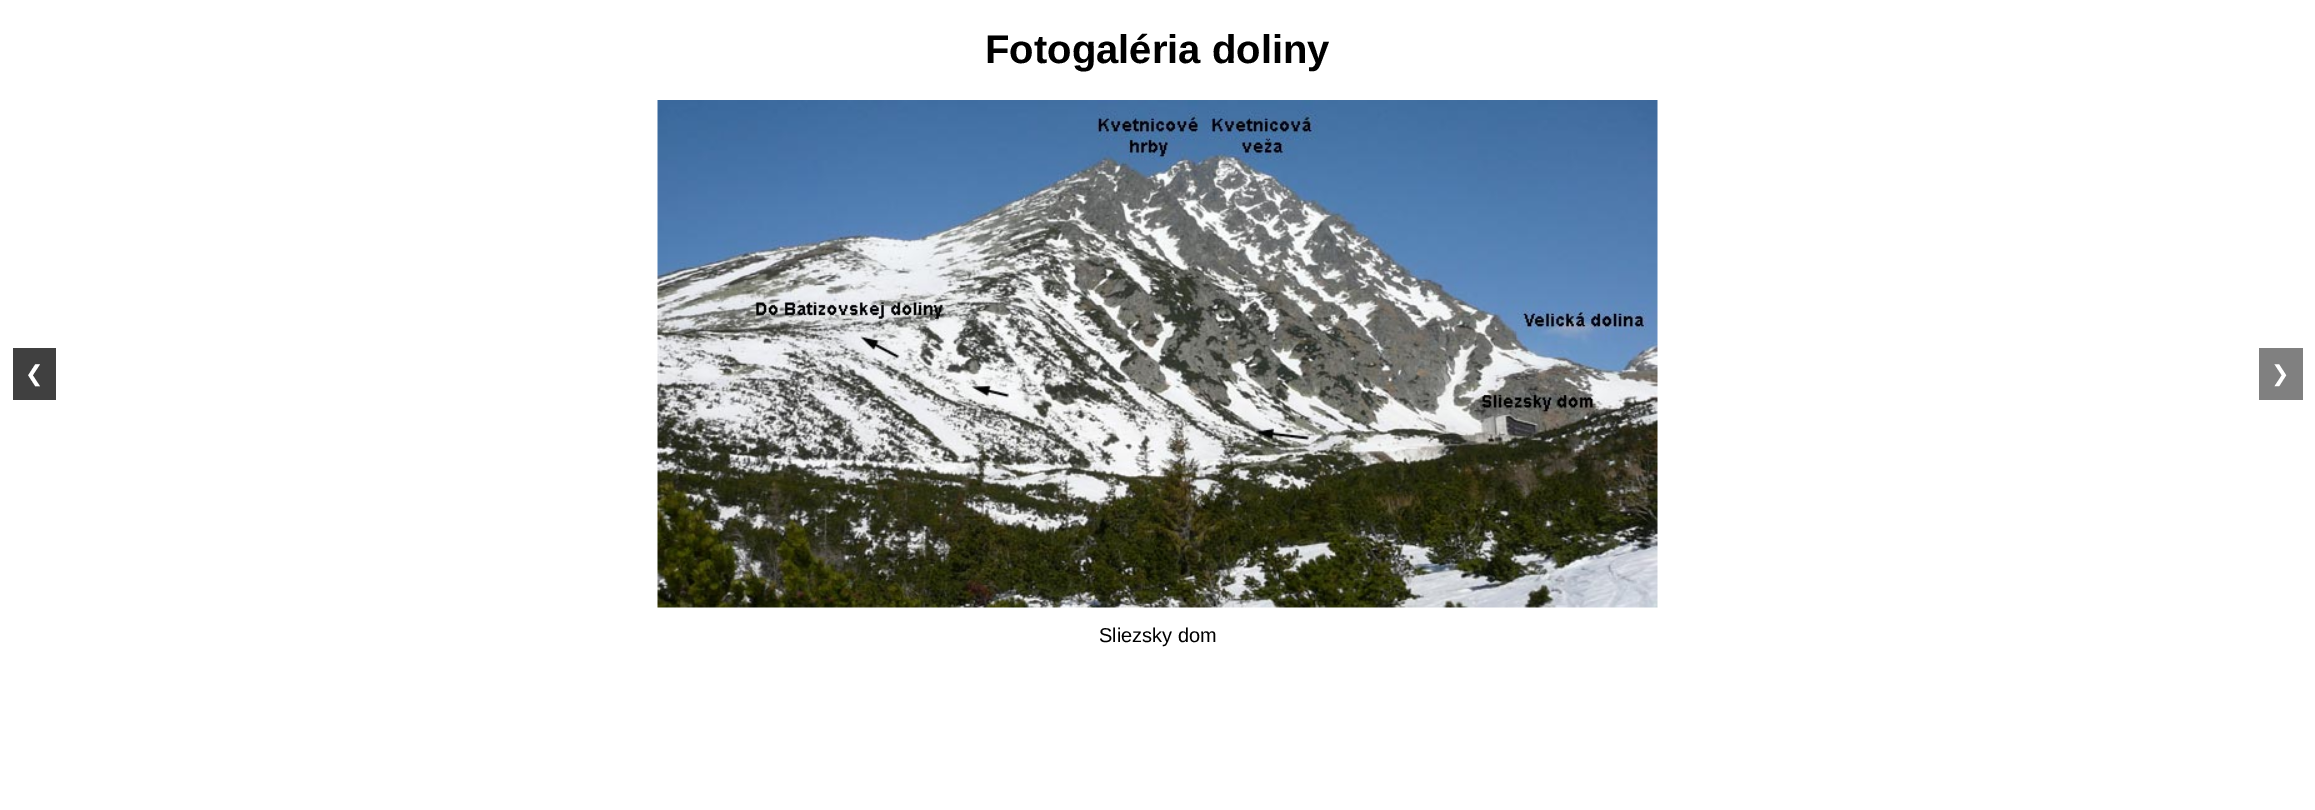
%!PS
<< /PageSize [2315 810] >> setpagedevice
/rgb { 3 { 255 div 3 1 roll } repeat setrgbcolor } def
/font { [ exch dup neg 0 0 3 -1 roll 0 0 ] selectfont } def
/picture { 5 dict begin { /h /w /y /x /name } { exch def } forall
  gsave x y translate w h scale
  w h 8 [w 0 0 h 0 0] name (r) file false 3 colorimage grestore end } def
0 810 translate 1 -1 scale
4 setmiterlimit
255 255 255 rgb
0 0 2315 810 rectfill
64 64 64 rgb
13 348 43 52 rectfill
128 128 128 rgb
2259 348 44 52 rectfill
(img/1.rgb) 657 100 1001 508 picture
/LiberationSans-Bold 40 font
0 0 0 rgb
985 63 moveto (Fotogaléria doliny) show
/DejaVuSans-Regular 22 font
128 128 128 rgb
25 381 moveto (❮) show
255 255 255 rgb
25 381 moveto (❮) show
2271 381 moveto (❯) show
/LiberationSans-Regular 20 font
0 0 0 rgb
1099 642 moveto (Sliezsky dom) show
showpage
